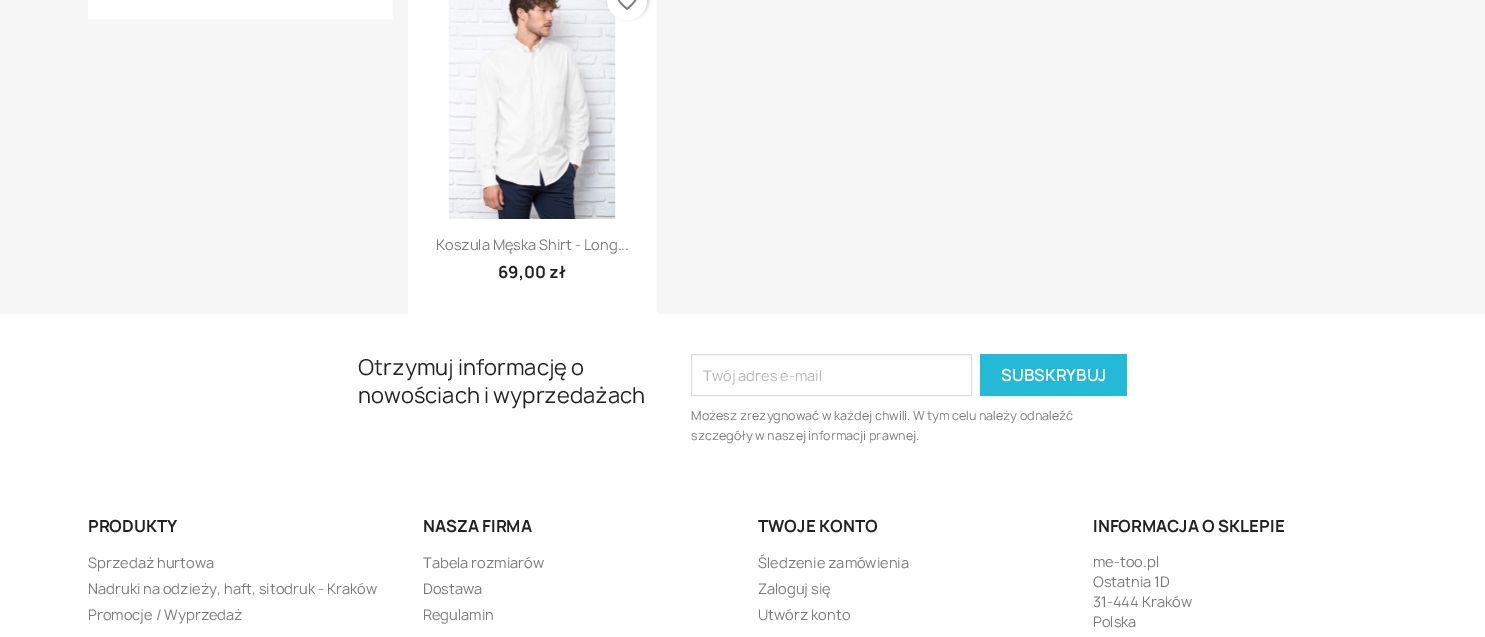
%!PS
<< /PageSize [1485 637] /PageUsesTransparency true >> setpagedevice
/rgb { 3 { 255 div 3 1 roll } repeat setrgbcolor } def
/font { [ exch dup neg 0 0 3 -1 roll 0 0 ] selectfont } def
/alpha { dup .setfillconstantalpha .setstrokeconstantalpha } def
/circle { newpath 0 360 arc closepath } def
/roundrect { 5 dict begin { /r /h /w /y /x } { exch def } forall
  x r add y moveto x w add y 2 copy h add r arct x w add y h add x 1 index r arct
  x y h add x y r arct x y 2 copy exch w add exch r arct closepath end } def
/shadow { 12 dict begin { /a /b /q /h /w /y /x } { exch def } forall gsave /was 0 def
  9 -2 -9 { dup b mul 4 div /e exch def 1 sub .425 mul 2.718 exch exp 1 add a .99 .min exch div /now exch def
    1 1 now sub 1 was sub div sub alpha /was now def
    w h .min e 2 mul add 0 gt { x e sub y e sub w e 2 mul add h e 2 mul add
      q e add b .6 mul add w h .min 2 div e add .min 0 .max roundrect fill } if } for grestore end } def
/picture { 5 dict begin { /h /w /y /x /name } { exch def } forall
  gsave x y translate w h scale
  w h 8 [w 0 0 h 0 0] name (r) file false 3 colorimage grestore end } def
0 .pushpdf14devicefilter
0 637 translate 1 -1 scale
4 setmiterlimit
255 255 255 rgb
0 0 1485 637 rectfill
[
  [0 0 1485 314 246 246 246]
  [88 0 305 19 255 255 255]
  [408 0 249 314 255 255 255]
] { aload pop rgb rectfill } forall
(img/1.rgb) 448 0 168 219 picture
0 0 0 rgb
609 -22 40 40 20 2 0.2 shadow
255 255 255 rgb
627 0 20 circle fill
(img/2.rgb) 617 0 20 11 picture
221 221 221 rgb
691.5 354.5 280 41 rectstroke
36 185 215 rgb
980 354 147 42 rectfill
/Manrope-Regular 14 font
122 122 122 rgb
436 250 moveto (Koszula Męska Shirt - Long...) show
/Manrope-Bold 16 font
35 35 35 rgb
498 278 moveto (69,00 zł) show
/Manrope-Regular 21 font
358 375 moveto (Otrzymuj informację o) show
358 403 moveto (nowościach i wyprzedażach) show
/Manrope-Regular 14 font
183 183 183 rgb
703 381 moveto (Twój adres e-mail) show
/Manrope-SemiBold 16 font
255 255 255 rgb
1001 381 moveto (SUBSKRYBUJ) show
/Manrope-Regular 12 font
122 122 122 rgb
691 420 moveto (Możesz zrezygnować w każdej chwili. W tym celu należy odnaleźć) show
691 440 moveto (szczegóły w naszej informacji prawnej.) show
/Manrope-Bold 16 font
35 35 35 rgb
88 532 moveto (PRODUKTY) show
/Manrope-Regular 14 font
122 122 122 rgb
[
  [(Sprzedaż hurtowa) 88 568]
  [(Nadruki na odzieży, haft, sitodruk - Kraków) 88 594]
  [(Promocje / Wyprzedaż) 88 620]
] { aload pop moveto show } forall
/Manrope-Bold 16 font
35 35 35 rgb
423 532 moveto (NASZA FIRMA) show
/Manrope-Regular 14 font
122 122 122 rgb
[
  [(Tabela rozmiarów) 423 568]
  [(Dostawa) 423 594]
  [(Regulamin) 423 620]
] { aload pop moveto show } forall
/Manrope-Bold 16 font
35 35 35 rgb
758 532 moveto (TWOJE KONTO) show
/Manrope-Regular 14 font
122 122 122 rgb
[
  [(Śledzenie zamówienia) 758 568]
  [(Zaloguj się) 758 594]
  [(Utwórz konto) 758 620]
] { aload pop moveto show } forall
/Manrope-Bold 16 font
35 35 35 rgb
1093 532 moveto (INFORMACJA O SKLEPIE) show
/Manrope-Regular 14 font
122 122 122 rgb
[
  [(me-too.pl) 1093 567]
  [(Ostatnia 1D) 1093 587]
  [(31-444 Kraków) 1093 607]
  [(Polska) 1093 627]
] { aload pop moveto show } forall
.poppdf14devicefilter showpage
